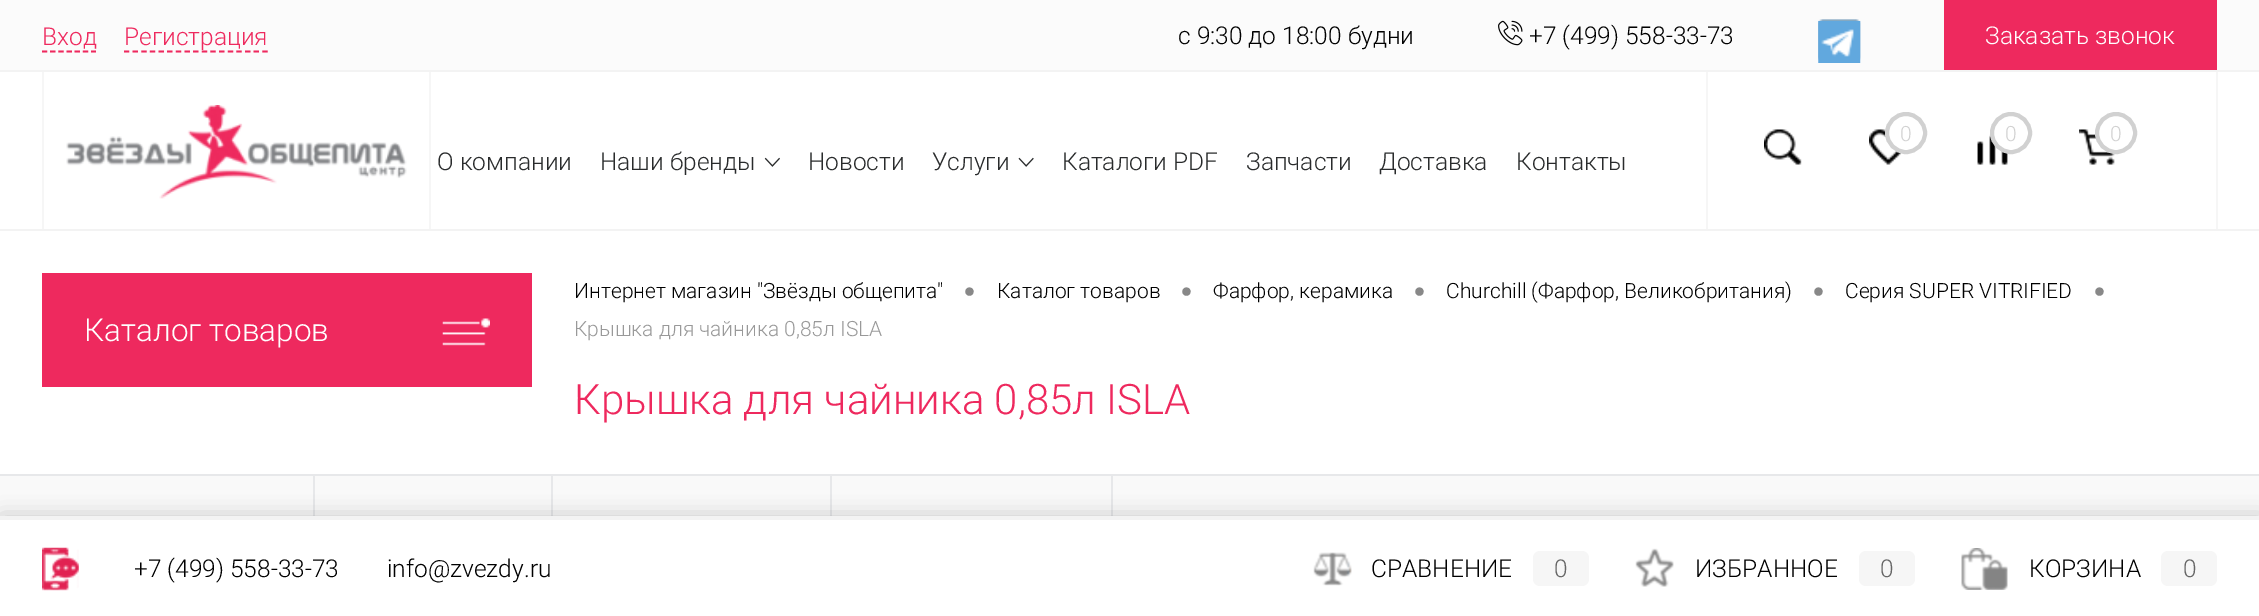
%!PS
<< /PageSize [2259 616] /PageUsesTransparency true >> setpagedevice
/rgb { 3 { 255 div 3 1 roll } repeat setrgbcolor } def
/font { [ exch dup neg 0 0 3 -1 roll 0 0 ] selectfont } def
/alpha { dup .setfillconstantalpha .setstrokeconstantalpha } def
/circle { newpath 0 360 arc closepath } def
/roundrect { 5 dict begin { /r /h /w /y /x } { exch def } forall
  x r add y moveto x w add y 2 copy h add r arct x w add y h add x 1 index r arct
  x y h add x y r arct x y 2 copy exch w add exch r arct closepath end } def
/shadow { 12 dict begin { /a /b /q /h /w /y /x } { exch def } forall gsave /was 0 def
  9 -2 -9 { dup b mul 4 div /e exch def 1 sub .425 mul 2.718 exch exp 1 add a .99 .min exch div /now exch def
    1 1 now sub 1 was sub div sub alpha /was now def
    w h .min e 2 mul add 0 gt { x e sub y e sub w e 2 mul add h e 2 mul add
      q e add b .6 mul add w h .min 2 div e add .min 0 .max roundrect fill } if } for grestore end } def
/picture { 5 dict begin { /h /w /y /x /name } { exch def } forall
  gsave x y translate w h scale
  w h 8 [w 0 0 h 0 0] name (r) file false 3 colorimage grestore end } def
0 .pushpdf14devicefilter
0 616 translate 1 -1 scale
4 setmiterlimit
255 255 255 rgb
0 0 2259 616 rectfill
251 251 251 rgb
0 0 2259 70 rectfill
238 41 94 rgb
1.8 setlinewidth
[5.25 2.92] 0 setdash
42 51.5 moveto 96 51.5 lineto stroke
[5.25 3.4] 0 setdash
124 51.5 moveto 268 51.5 lineto stroke
(img/1.rgb) 1498 20 25 26 picture
(img/2.rgb) 1818 19 43 41 picture
(img/3.rgb) 1818 21 43 42 picture
[
  [1944 0 273 70 238 41 94]
  [0 70 2259 2 243 243 243]
  [0 229 2259 2 243 243 243]
  [429 72 2 157 246 246 246]
  [42 72 2 157 246 246 246]
] { aload pop rgb rectfill } forall
(img/4.rgb) 66 105 341 94 picture
2216 72 2 157 rectfill
1706 72 2 157 rectfill
(img/5.rgb) 1764 129 38 36 picture
(img/6.rgb) 1869 129 32 36 picture
255 255 255 rgb
1906 133 19 circle gsave fill grestore
209 209 209 rgb
4 setlinewidth
[] 0 setdash
stroke
(img/7.rgb) 1977 134 31 31 picture
255 255 255 rgb
2011 133 19 circle gsave fill grestore
209 209 209 rgb
stroke
(img/8.rgb) 2079 129 36 36 picture
255 255 255 rgb
2116 133 19 circle gsave fill grestore
209 209 209 rgb
stroke
(img/9.rgb) 764 157 16 10 picture
(img/10.rgb) 1018 157 16 10 picture
238 41 94 rgb
42 273 490 114 rectfill
(img/11.rgb) 442 318 48 28 picture
[
  [0 474 2259 2 231 232 234]
  [0 476 2259 40 249 249 249]
  [313 476 2 40 231 232 234]
  [551 476 2 40 231 232 234]
  [830 476 2 40 231 232 234]
  [1111 476 2 40 231 232 234]
] { aload pop rgb rectfill } forall
0 0 0 rgb
2 518 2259 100 0 10.5 0.25 shadow
255 255 255 rgb
0 520 2259 96 rectfill
243 243 243 rgb
0 516 2259 4 rectfill
(img/12.rgb) 42 547 37 44 picture
(img/13.rgb) 1313 552 39 34 picture
246 246 246 rgb
1533 551 56 35 7 roundrect fill
(img/14.rgb) 1635 548 39 39 picture
1859 551 56 35 7 roundrect fill
(img/15.rgb) 1961 548 47 42 picture
2161 551 56 35 7 roundrect fill
/Roboto-Light 24.5 font
238 41 94 rgb
42 45 moveto (Вход) show
124 45 moveto (Регистрация) show
0 0 0 rgb
1178 44 moveto (с 9:30 до 18:00 будни) show
1529 44 moveto (+7 \(499\) 558-33-73) show
255 255 255 rgb
1985 44 moveto (Заказать звонок) show
/Roboto-Light 21 font
209 209 209 rgb
[
  [(0) 1900 141]
  [(0) 2005 141]
  [(0) 2110 141]
] { aload pop moveto show } forall
/Roboto-Light 24.5 font
41 43 44 rgb
[
  [(О компании) 437 170]
  [(Наши бренды) 600 170]
  [(Новости) 808 170]
  [(Услуги) 932 170]
  [(Каталоги PDF) 1062 170]
  [(Запчасти) 1246 170]
  [(Доставка) 1379 170]
  [(Контакты) 1516 170]
] { aload pop moveto show } forall
/Roboto-Light 31.5 font
255 255 255 rgb
84 341 moveto (Каталог товаров) show
/Roboto-Light 21 font
0 0 0 rgb
574 298 moveto (Интернет магазин "Звёзды общепита") show
/LiberationSans-Regular 31.5 font
136 136 136 rgb
964 302 moveto (•) show
/Roboto-Light 21 font
0 0 0 rgb
997 298 moveto (Каталог товаров) show
/LiberationSans-Regular 31.5 font
136 136 136 rgb
1181 302 moveto (•) show
/Roboto-Light 21 font
0 0 0 rgb
1213 298 moveto (Фарфор, керамика) show
/LiberationSans-Regular 31.5 font
136 136 136 rgb
1414 302 moveto (•) show
/Roboto-Light 21 font
0 0 0 rgb
1446 298 moveto (Churchill \(Фарфор, Великобритания\)) show
/LiberationSans-Regular 31.5 font
136 136 136 rgb
1813 302 moveto (•) show
/Roboto-Light 21 font
0 0 0 rgb
1845 298 moveto (Серия SUPER VITRIFIED) show
/LiberationSans-Regular 31.5 font
136 136 136 rgb
2094 302 moveto (•) show
/Roboto-Light 21 font
153 153 153 rgb
574 336 moveto (Крышка для чайника 0,85л ISLA) show
/Roboto-Light 42 font
238 41 94 rgb
574 414 moveto (Крышка для чайника 0,85л ISLA) show
/Roboto-Light 24.5 font
0 0 0 rgb
[
  [(+7 \(499\) 558-33-73) 134 577]
  [(info@zvezdy.ru) 387 577]
  [(СРАВНЕНИЕ) 1371 577]
] { aload pop moveto show } forall
102 102 102 rgb
1554 577 moveto (0) show
0 0 0 rgb
1695 577 moveto (ИЗБРАННОЕ) show
102 102 102 rgb
1880 577 moveto (0) show
0 0 0 rgb
2029 577 moveto (КОРЗИНА) show
102 102 102 rgb
2183 577 moveto (0) show
.poppdf14devicefilter showpage
